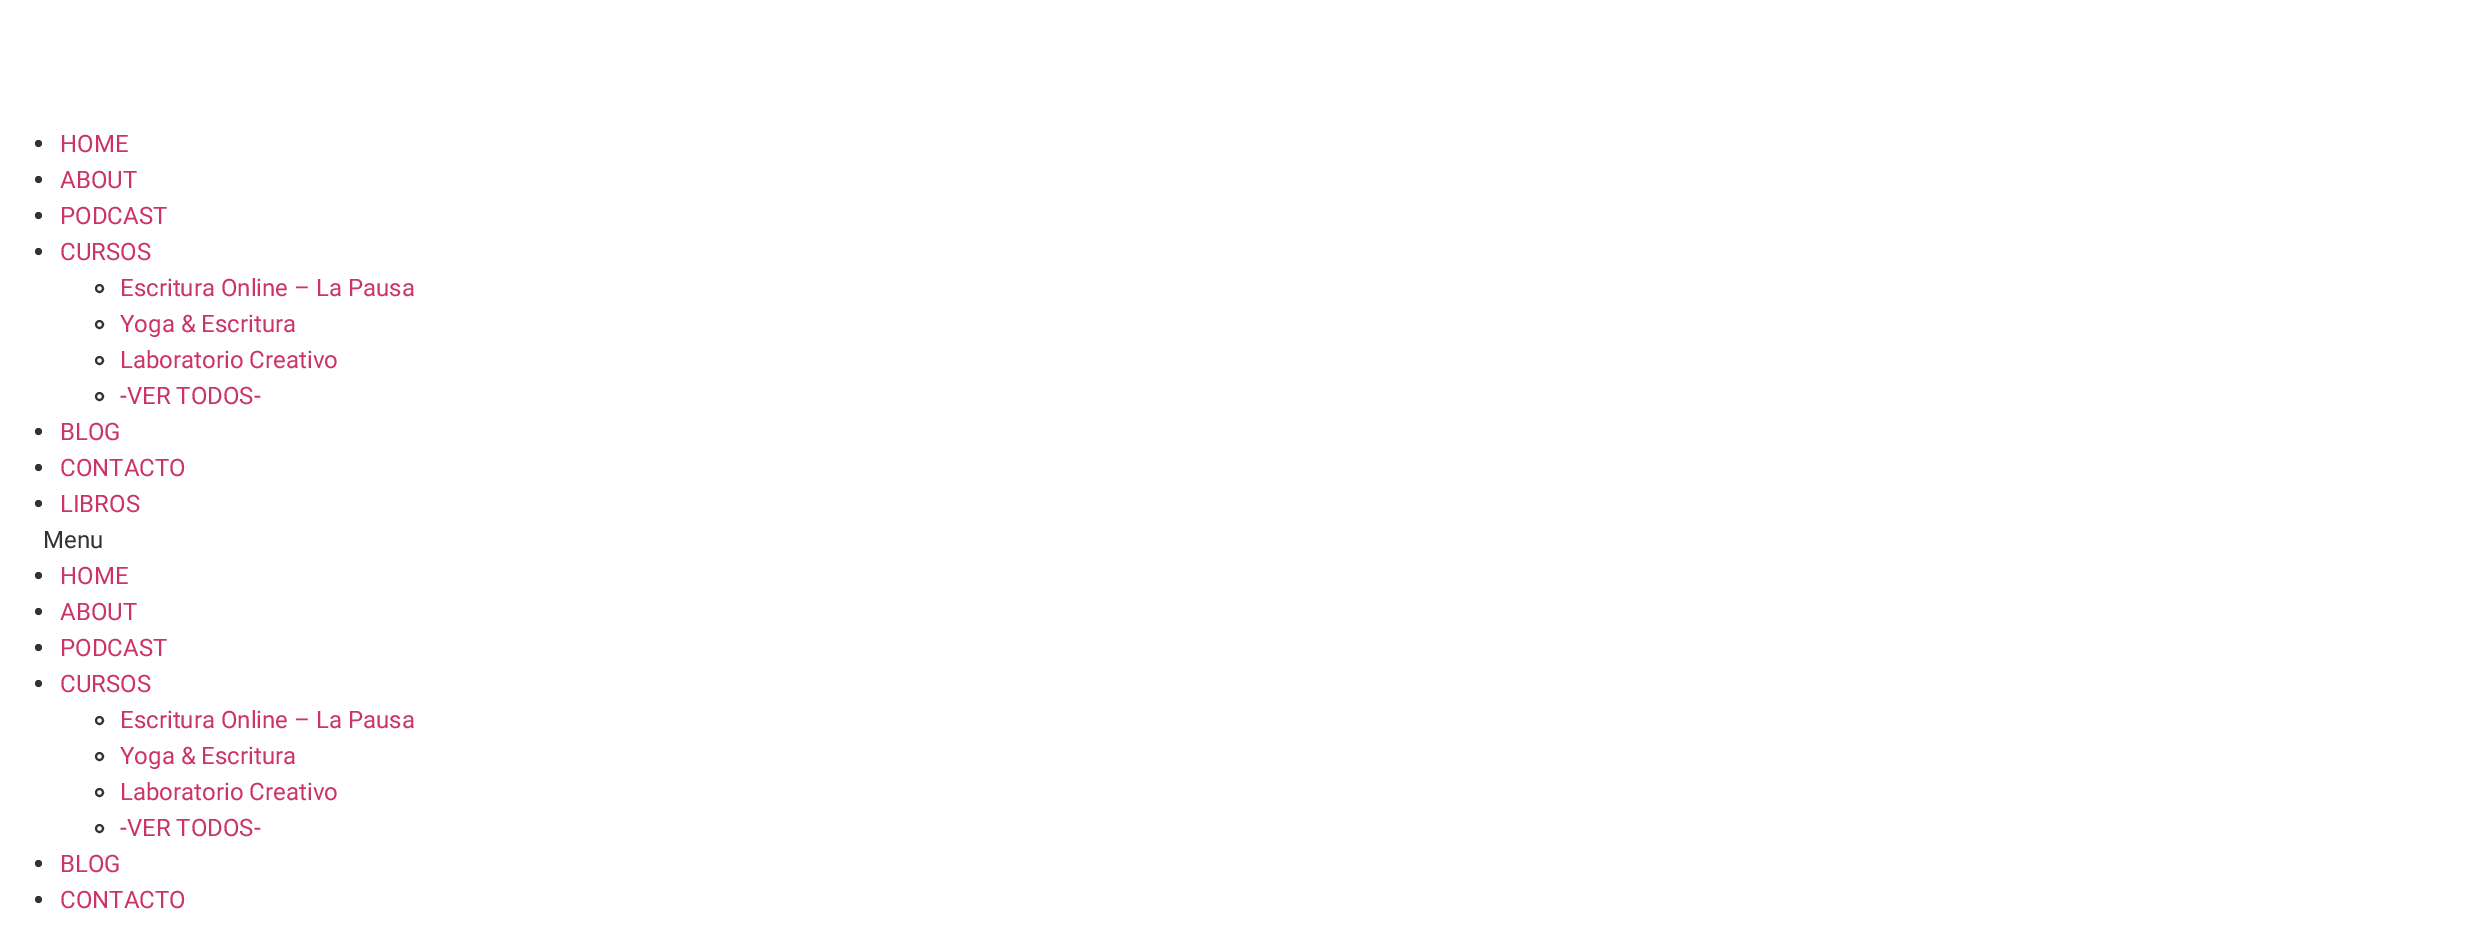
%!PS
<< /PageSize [2465 931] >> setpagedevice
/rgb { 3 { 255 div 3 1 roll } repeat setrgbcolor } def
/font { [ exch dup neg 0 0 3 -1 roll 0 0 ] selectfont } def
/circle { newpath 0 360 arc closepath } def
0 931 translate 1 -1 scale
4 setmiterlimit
255 255 255 rgb
0 0 2465 931 rectfill
51 51 51 rgb
38.5 143.5 3.5 circle fill
38.5 179.5 3.5 circle fill
38.5 215.5 3.5 circle fill
38.5 251.5 3.5 circle fill
2 setlinewidth
99.5 288.5 3.5 circle stroke
99.5 324.5 3.5 circle stroke
99.5 360.5 3.5 circle stroke
99.5 396.5 3.5 circle stroke
38.5 431.5 3.5 circle fill
38.5 467.5 3.5 circle fill
38.5 503.5 3.5 circle fill
38.5 575.5 3.5 circle fill
38.5 611.5 3.5 circle fill
38.5 647.5 3.5 circle fill
38.5 683.5 3.5 circle fill
99.5 720.5 3.5 circle stroke
99.5 756.5 3.5 circle stroke
99.5 792.5 3.5 circle stroke
99.5 828.5 3.5 circle stroke
38.5 863.5 3.5 circle fill
38.5 899.5 3.5 circle fill
/Roboto-Regular 24 font
204 51 102 rgb
[
  [(HOME) 60 152]
  [(ABOUT) 60 188]
  [(PODCAST) 60 224]
  [(CURSOS) 60 260]
  [(Escritura Online – La Pausa) 120 296]
  [(Yoga & Escritura) 120 332]
  [(Laboratorio Creativo) 120 368]
  [(-VER TODOS-) 120 404]
  [(BLOG) 60 440]
  [(CONTACTO) 60 476]
  [(LIBROS) 60 512]
] { aload pop moveto show } forall
51 51 51 rgb
43 548 moveto (Menu) show
204 51 102 rgb
[
  [(HOME) 60 584]
  [(ABOUT) 60 620]
  [(PODCAST) 60 656]
  [(CURSOS) 60 692]
  [(Escritura Online – La Pausa) 120 728]
  [(Yoga & Escritura) 120 764]
  [(Laboratorio Creativo) 120 800]
  [(-VER TODOS-) 120 836]
  [(BLOG) 60 872]
  [(CONTACTO) 60 908]
] { aload pop moveto show } forall
showpage
